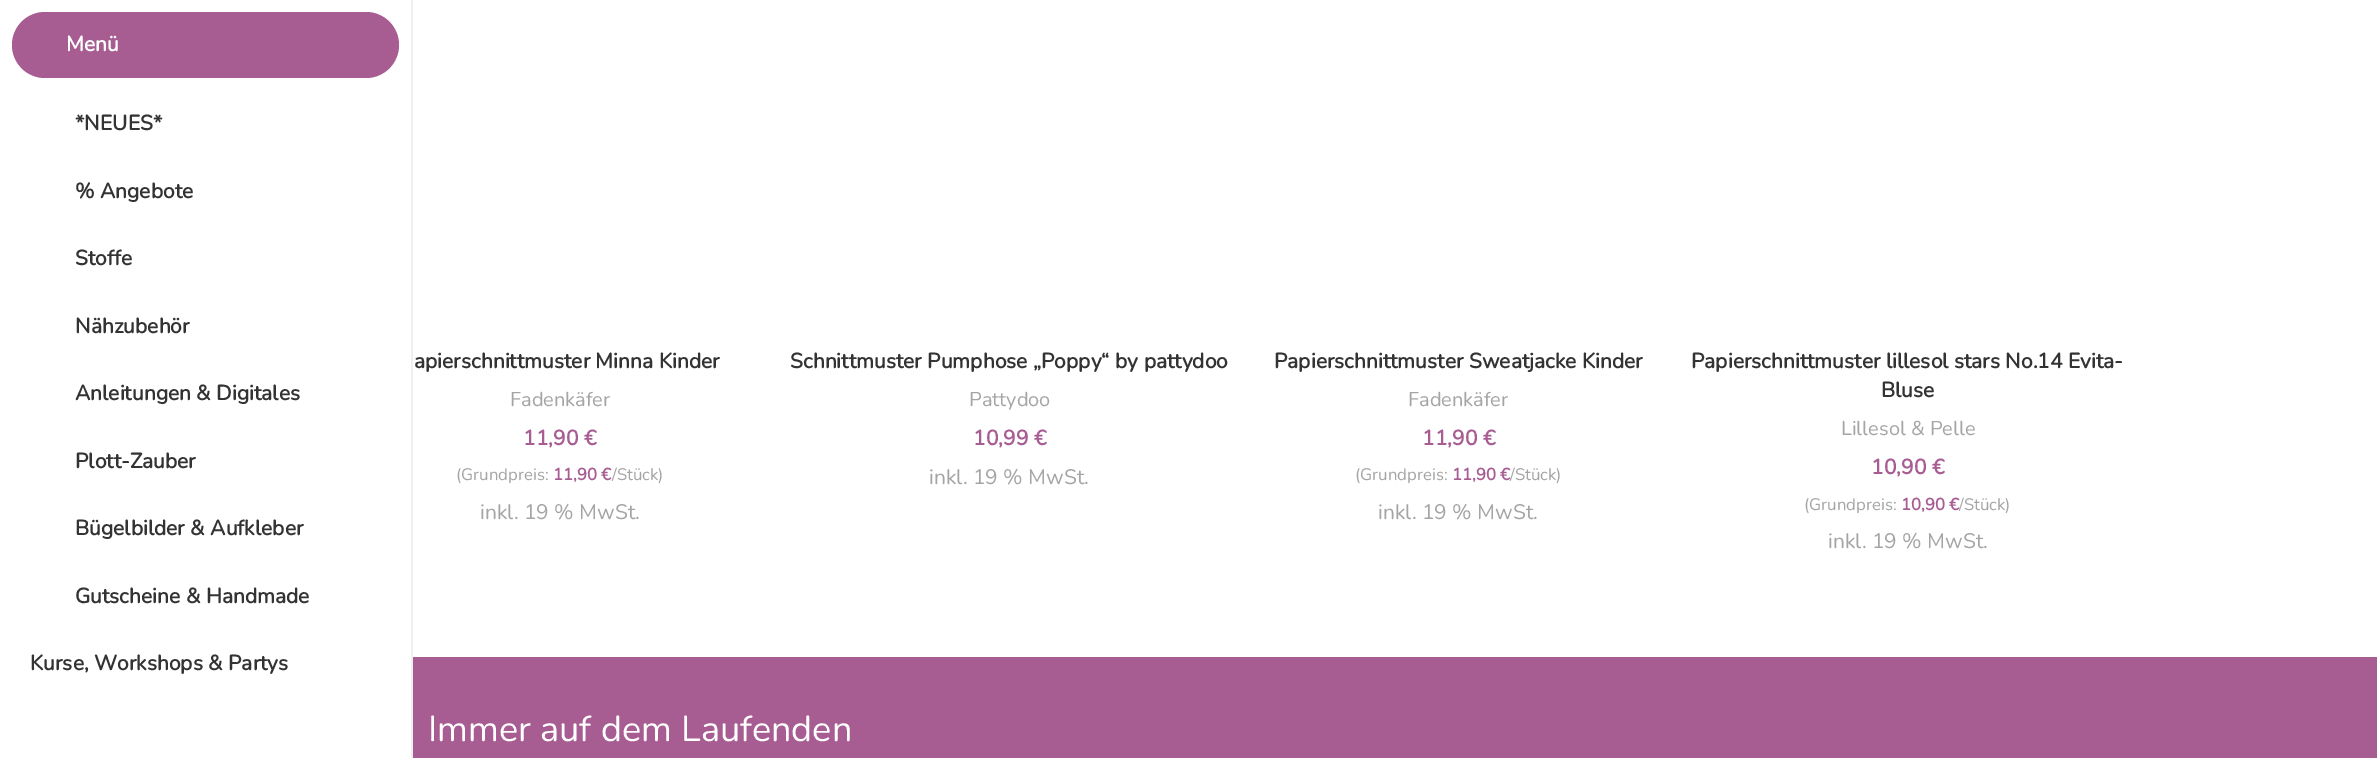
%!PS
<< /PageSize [2377 758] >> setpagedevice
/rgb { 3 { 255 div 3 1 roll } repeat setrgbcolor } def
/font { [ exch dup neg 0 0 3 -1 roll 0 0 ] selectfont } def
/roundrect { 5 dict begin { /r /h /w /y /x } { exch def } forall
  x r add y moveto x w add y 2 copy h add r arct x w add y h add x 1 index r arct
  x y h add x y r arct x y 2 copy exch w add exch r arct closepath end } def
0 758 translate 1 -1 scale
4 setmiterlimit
255 255 255 rgb
0 0 2377 758 rectfill
239 239 239 rgb
411 0 2 758 rectfill
167 92 146 rgb
12 12 387 66 33 roundrect fill
413 657 1964 101 rectfill
/Nunito-Bold 21 font
255 255 255 rgb
66 51 moveto (Menü) show
51 51 51 rgb
[
  [(*NEUES*) 75 130]
  [(% Angebote) 75 198]
  [(Stoffe) 75 265]
  [(Nähzubehör) 75 333]
  [(Anleitungen & Digitales) 75 400]
  [(Plott-Zauber) 75 468]
  [(Bügelbilder & Aufkleber) 75 535]
  [(Gutscheine & Handmade) 75 603]
  [(Kurse, Workshops & Partys) 30 670]
  [(apierschnittmuster Minna Kinder) 414 368]
] { aload pop moveto show } forall
/Nunito-ExtraLight 20 font
165 165 165 rgb
510 406 moveto (Fadenkäfer) show
/Nunito-Bold 21 font
167 92 146 rgb
523 445 moveto (11,90 €) show
/Nunito-ExtraLight 16.75 font
165 165 165 rgb
456 480 moveto (\(Grundpreis:) show
/Nunito-Bold 16.75 font
167 92 146 rgb
553 480 moveto (11,90 €) show
/Nunito-ExtraLight 16.75 font
165 165 165 rgb
612 480 moveto (/Stück\)) show
/Nunito-ExtraLight 21 font
480 519 moveto (inkl. 19 % MwSt.) show
/Nunito-Bold 21 font
51 51 51 rgb
790 368 moveto (Schnittmuster Pumphose „Poppy“ by pattydoo) show
/Nunito-ExtraLight 20 font
165 165 165 rgb
969 406 moveto (Pattydoo) show
/Nunito-Bold 21 font
167 92 146 rgb
973 445 moveto (10,99 €) show
/Nunito-ExtraLight 21 font
165 165 165 rgb
929 484 moveto (inkl. 19 % MwSt.) show
/Nunito-Bold 21 font
51 51 51 rgb
1274 368 moveto (Papierschnittmuster Sweatjacke Kinder) show
/Nunito-ExtraLight 20 font
165 165 165 rgb
1408 406 moveto (Fadenkäfer) show
/Nunito-Bold 21 font
167 92 146 rgb
1422 445 moveto (11,90 €) show
/Nunito-ExtraLight 16.75 font
165 165 165 rgb
1355 480 moveto (\(Grundpreis:) show
/Nunito-Bold 16.75 font
167 92 146 rgb
1452 480 moveto (11,90 €) show
/Nunito-ExtraLight 16.75 font
165 165 165 rgb
1510 480 moveto (/Stück\)) show
/Nunito-ExtraLight 21 font
1378 519 moveto (inkl. 19 % MwSt.) show
/Nunito-Bold 21 font
51 51 51 rgb
1691 368 moveto (Papierschnittmuster lillesol stars No.14 Evita-) show
1881 397 moveto (Bluse) show
/Nunito-ExtraLight 20 font
165 165 165 rgb
1841 435 moveto (Lillesol & Pelle) show
/Nunito-Bold 21 font
167 92 146 rgb
1871 474 moveto (10,90 €) show
/Nunito-ExtraLight 16.75 font
165 165 165 rgb
1804 510 moveto (\(Grundpreis:) show
/Nunito-Bold 16.75 font
167 92 146 rgb
1901 510 moveto (10,90 €) show
/Nunito-ExtraLight 16.75 font
165 165 165 rgb
1959 510 moveto (/Stück\)) show
/Nunito-ExtraLight 21 font
1828 548 moveto (inkl. 19 % MwSt.) show
/Nunito-ExtraLight 36 font
255 255 255 rgb
428 741 moveto (Immer auf dem Laufenden) show
showpage
